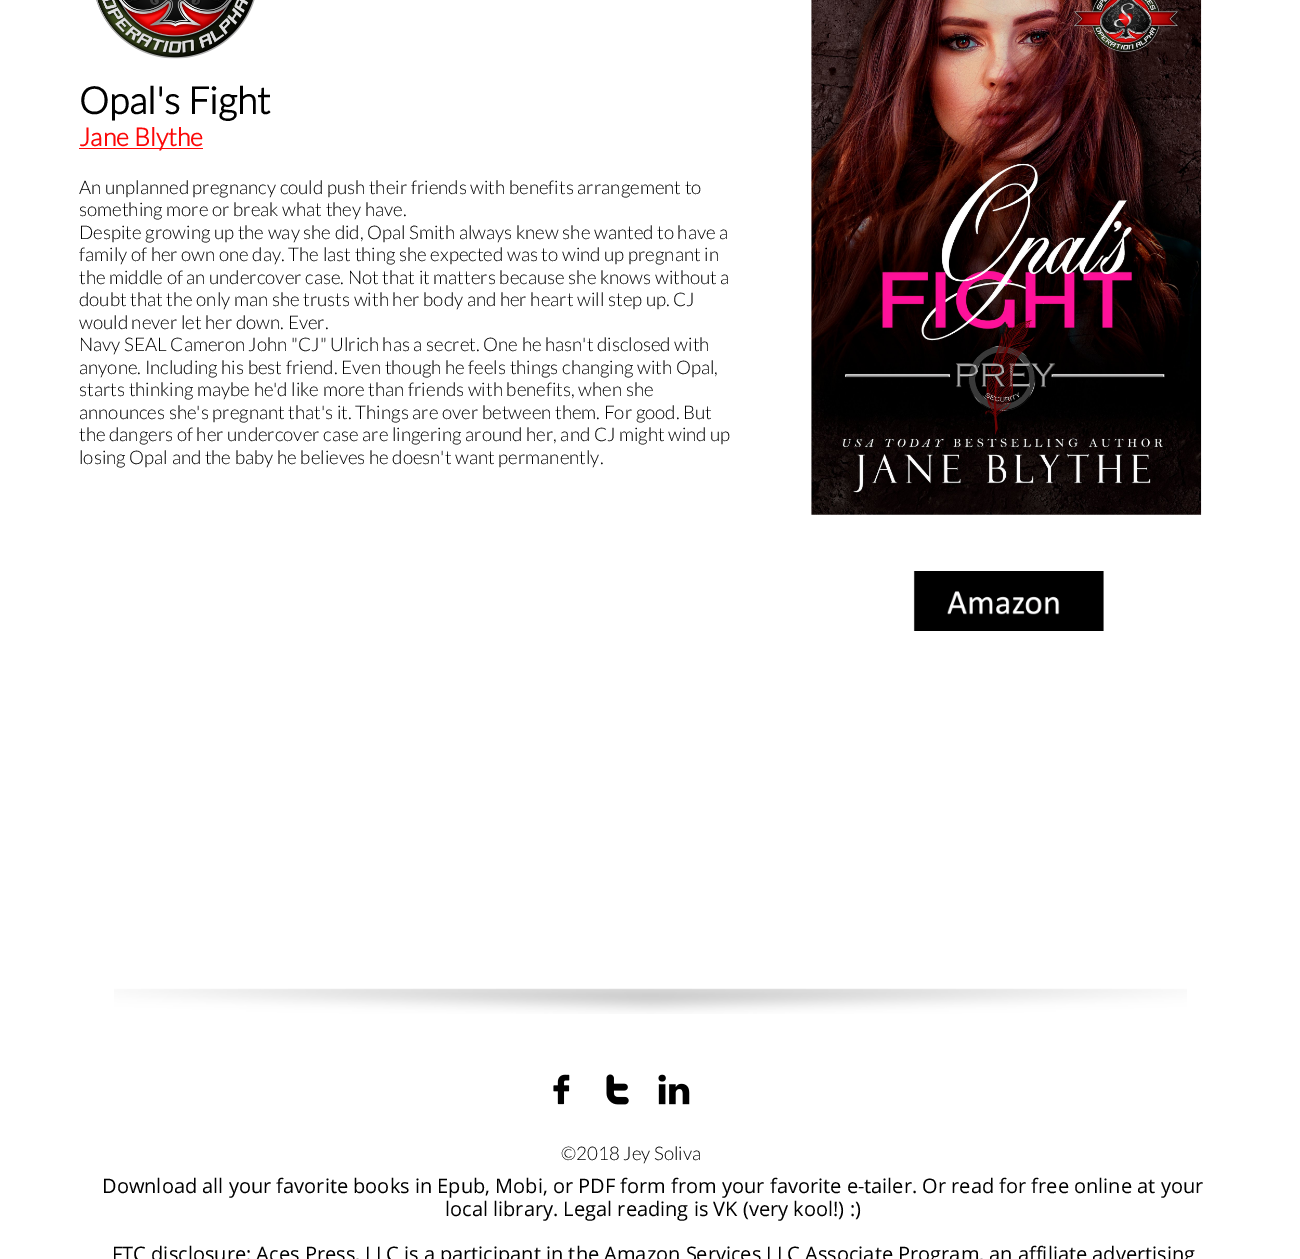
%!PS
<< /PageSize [1300 1259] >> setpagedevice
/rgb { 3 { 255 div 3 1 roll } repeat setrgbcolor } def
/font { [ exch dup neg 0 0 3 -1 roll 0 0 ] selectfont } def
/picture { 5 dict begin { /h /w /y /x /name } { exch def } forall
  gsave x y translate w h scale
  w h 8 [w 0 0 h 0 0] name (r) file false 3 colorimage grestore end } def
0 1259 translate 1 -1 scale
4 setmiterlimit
255 255 255 rgb
0 0 1300 1259 rectfill
(img/1.rgb) 96 0 159 59 picture
(img/2.rgb) 811 0 391 515 picture
252 8 8 rgb
79 148 124 1 rectfill
(img/3.rgb) 913 571 191 60 picture
(img/4.rgb) 114 988 1073 26 picture
(img/5.rgb) 553 1074 17 31 picture
(img/6.rgb) 606 1074 23 31 picture
(img/7.rgb) 658 1074 32 31 picture
/Lato-Bold 37.5 font
0 0 0 rgb
79 114 moveto (Opal's Fight) show
/Lato-Bold 25 font
252 8 8 rgb
79 146 moveto (Jane Blythe) show
/Lato-Light 18.75 font
0 0 0 rgb
[
  [(An unplanned pregnancy could push their friends with benefits arrangement to) 79 194]
  [(something more or break what they have.) 79 216]
  [(Despite growing up the way she did, Opal Smith always knew she wanted to have a) 79 239]
  [(family of her own one day. The last thing she expected was to wind up pregnant in) 79 261]
  [(the middle of an undercover case. Not that it matters because she knows without a) 79 284]
  [(doubt that the only man she trusts with her body and her heart will step up. CJ) 79 306]
  [(would never let her down. Ever.) 79 329]
  [(Navy SEAL Cameron John "CJ" Ulrich has a secret. One he hasn't disclosed with) 79 351]
  [(anyone. Including his best friend. Even though he feels things changing with Opal,) 79 374]
  [(starts thinking maybe he'd like more than friends with benefits, when she) 79 396]
  [(announces she's pregnant that's it. Things are over between them. For good. But) 79 419]
  [(the dangers of her undercover case are lingering around her, and CJ might wind up) 79 441]
  [(losing Opal and the baby he believes he doesn't want permanently.) 79 464]
  [(©2018 Jey Soliva) 561 1160]
] { aload pop moveto show } forall
/OpenSans-Regular 20 font
[
  [(Download all your favorite books in Epub, Mobi, or PDF form from your favorite e-tailer. Or read for free online at your) 102 1193]
  [(local library. Legal reading is VK \(very kool!\) :\)) 445 1216]
  [(FTC disclosure: Aces Press, LLC is a participant in the Amazon Services LLC Associate Program, an affiliate advertising) 112 1261]
] { aload pop moveto show } forall
showpage
